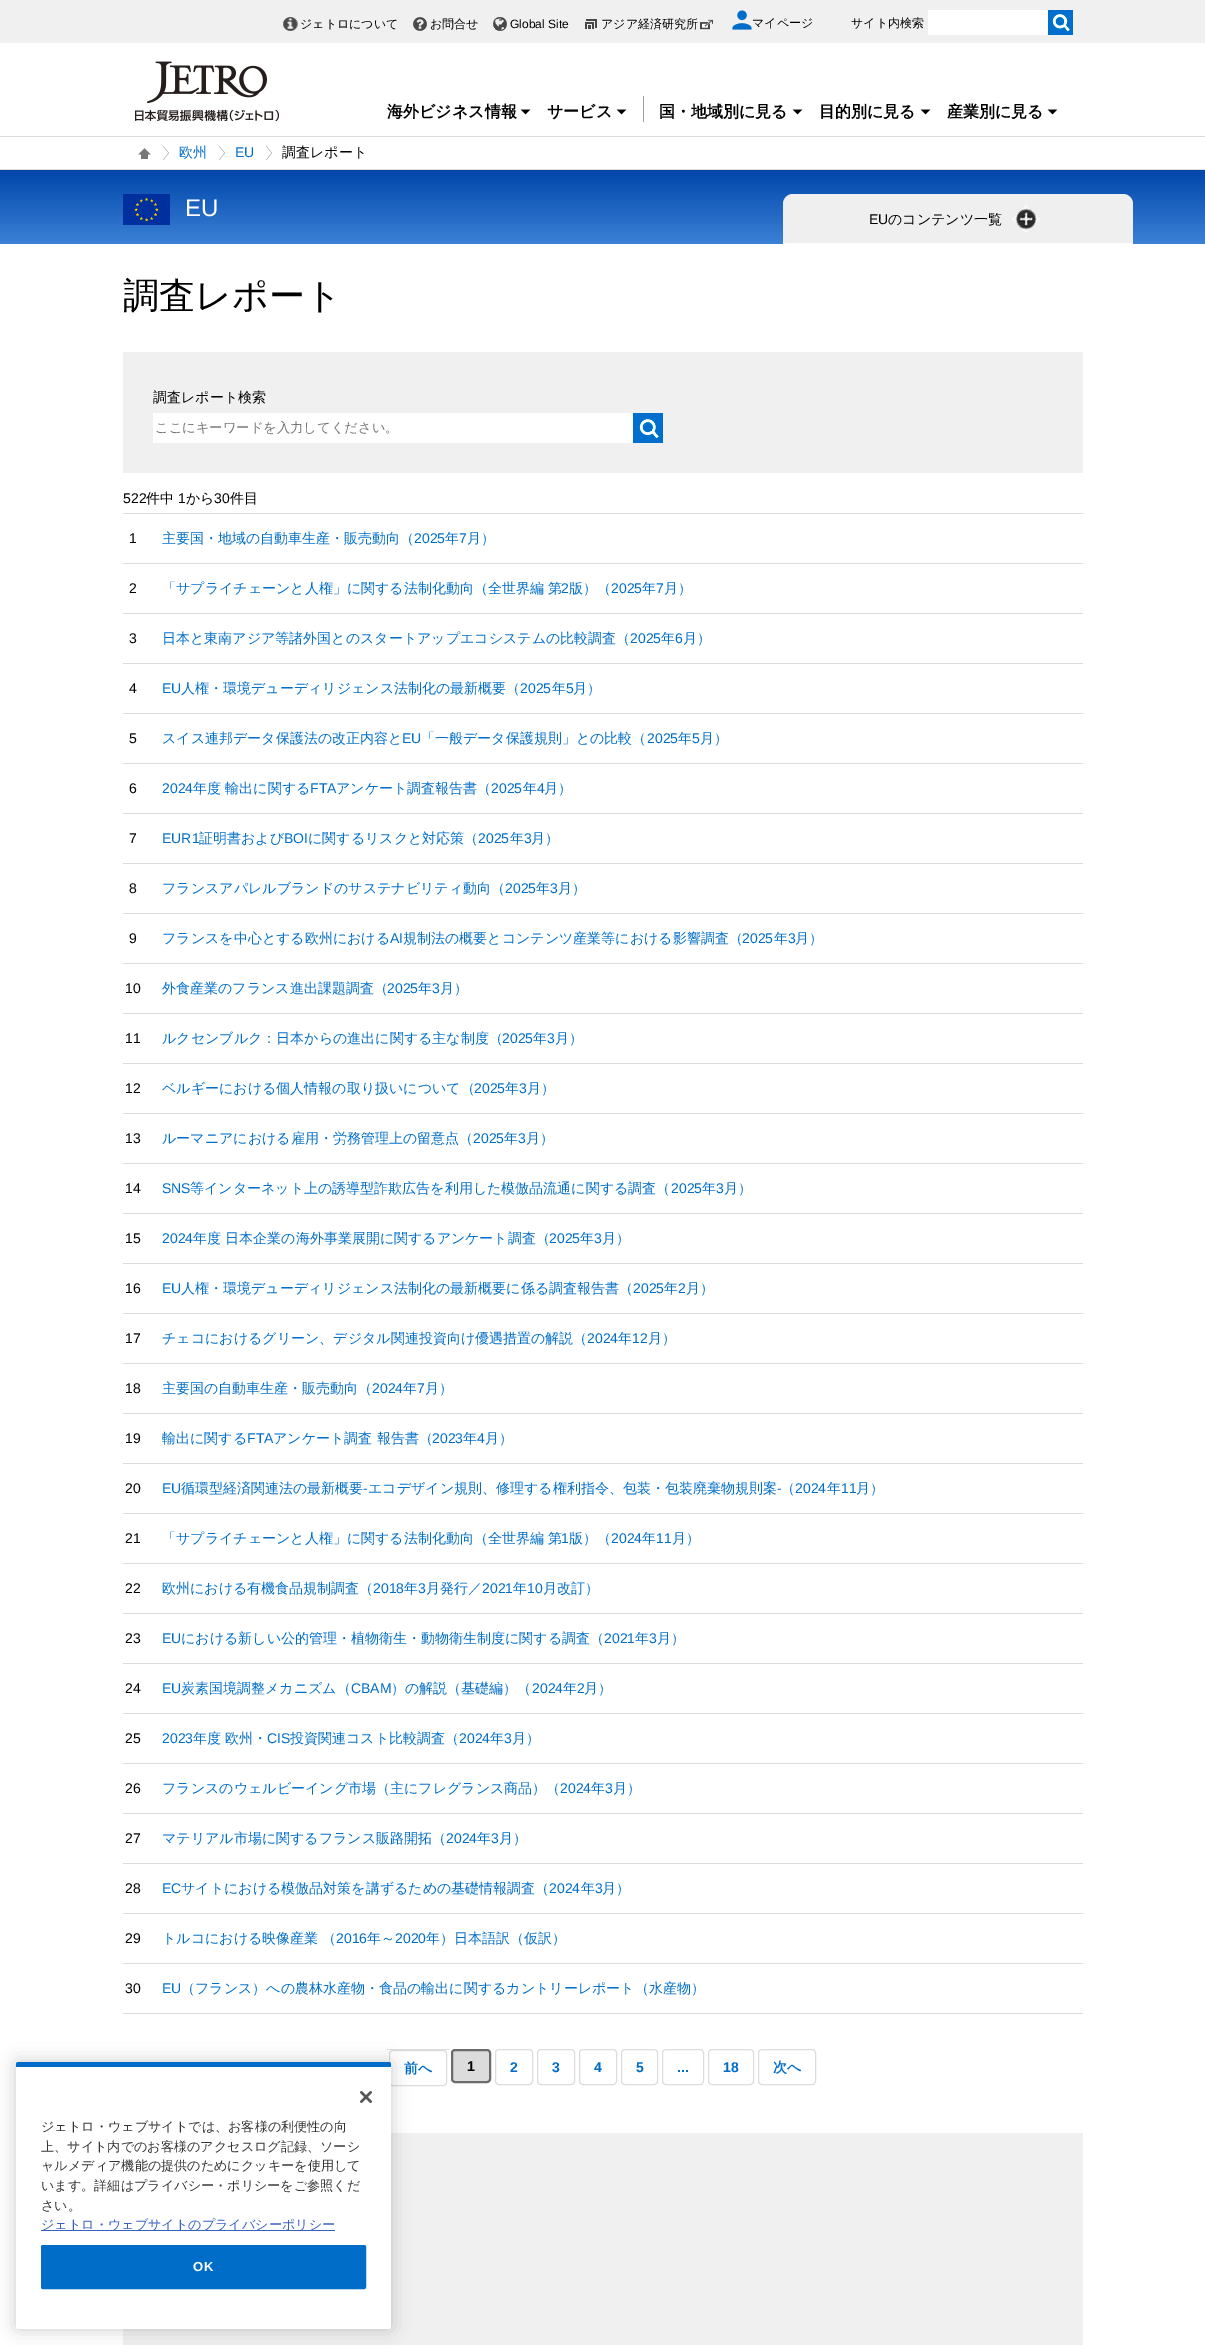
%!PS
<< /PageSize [1205 2345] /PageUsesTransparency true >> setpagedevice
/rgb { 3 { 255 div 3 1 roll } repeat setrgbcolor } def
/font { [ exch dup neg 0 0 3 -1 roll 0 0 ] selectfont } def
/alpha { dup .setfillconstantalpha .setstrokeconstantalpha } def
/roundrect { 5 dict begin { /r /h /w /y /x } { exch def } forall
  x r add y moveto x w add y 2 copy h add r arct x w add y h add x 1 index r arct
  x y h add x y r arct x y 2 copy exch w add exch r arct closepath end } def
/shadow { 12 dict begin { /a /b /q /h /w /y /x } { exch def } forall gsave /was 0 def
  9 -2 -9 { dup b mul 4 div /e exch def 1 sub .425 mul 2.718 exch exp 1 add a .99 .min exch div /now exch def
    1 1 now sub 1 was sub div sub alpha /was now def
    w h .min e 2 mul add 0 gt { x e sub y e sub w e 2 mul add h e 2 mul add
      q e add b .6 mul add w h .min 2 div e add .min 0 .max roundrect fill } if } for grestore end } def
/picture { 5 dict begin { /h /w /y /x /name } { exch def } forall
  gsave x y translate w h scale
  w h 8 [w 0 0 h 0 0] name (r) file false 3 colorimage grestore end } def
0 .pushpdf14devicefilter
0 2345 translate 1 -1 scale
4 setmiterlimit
255 255 255 rgb
0 0 1205 2345 rectfill
240 240 240 rgb
0 0 1205 43 rectfill
(img/1.rgb) 283 17 15 14 picture
(img/2.rgb) 413 17 14 14 picture
(img/3.rgb) 493 17 14 14 picture
(img/4.rgb) 585 19 12 10 picture
(img/5.rgb) 700 19 13 11 picture
(img/6.rgb) 732 10 20 20 picture
255 255 255 rgb
928 10 120 25 rectfill
(img/7.rgb) 1048 10 25 25 picture
(img/8.rgb) 135 61 144 60 picture
(img/9.rgb) 520 109 11 6 picture
159 159 159 rgb
643 96 1 26 rectfill
(img/9.rgb) 616 109 11 6 picture
(img/9.rgb) 792 109 11 6 picture
(img/9.rgb) 920 109 11 6 picture
(img/9.rgb) 1047 109 11 6 picture
220 220 220 rgb
0 136 1205 1 rectfill
0 169 1205 1 rectfill
(img/10.rgb) 163 146 6 14 picture
(img/11.rgb) 138 148 13 11 picture
(img/10.rgb) 219 146 6 14 picture
(img/10.rgb) 266 146 6 14 picture
gsave 0 170 moveto 1205 170 lineto 1205 244 lineto 0 244 lineto closepath clip newpath
<< /ShadingType 2 /ColorSpace /DeviceRGB /Coords [603 170 603 244] /Extend [true true] /Function << /FunctionType 2 /Domain [0 1] /C0 [0 0.275 0.667] /C1 [0.231 0.506 0.839] /N 1 >> >> shfill grestore
(img/12.rgb) 123 194 47 31 picture
240 239 240 rgb
793 194 moveto 1123 194 lineto 1128.5 194 1133 198.5 1133 204 curveto 1133 244 lineto 783 244 lineto 783 204 lineto 783 198.5 787.5 194 793 194 curveto closepath fill
255 255 255 rgb
783 243 350 1 rectfill
(img/13.rgb) 1012 205 28 28 picture
240 240 240 rgb
123 352 960 121 rectfill
255 255 255 rgb
153 413 480 30 rectfill
(img/14.rgb) 633 413 30 30 picture
[
  [123 513 960 1 220 220 220]
  [123 563 960 1 220 220 220]
  [123 613 960 1 220 220 220]
  [123 663 960 1 220 220 220]
  [123 713 960 1 220 220 220]
  [123 763 960 1 220 220 220]
  [123 813 960 1 220 220 220]
  [123 863 960 1 220 220 220]
  [123 913 960 1 220 220 220]
  [123 963 960 1 220 220 220]
  [123 1013 960 1 220 220 220]
  [123 1063 960 1 220 220 220]
  [123 1113 960 1 220 220 220]
  [123 1163 960 1 220 220 220]
  [123 1213 960 1 220 220 220]
  [123 1263 960 1 220 220 220]
  [123 1313 960 1 220 220 220]
  [123 1363 960 1 220 220 220]
  [123 1413 960 1 220 220 220]
  [123 1463 960 1 220 220 220]
  [123 1513 960 1 220 220 220]
  [123 1563 960 1 220 220 220]
  [123 1613 960 1 220 220 220]
  [123 1663 960 1 220 220 220]
  [123 1713 960 1 220 220 220]
  [123 1763 960 1 220 220 220]
  [123 1813 960 1 220 220 220]
  [123 1863 960 1 220 220 220]
  [123 1913 960 1 220 220 220]
  [123 1963 960 1 220 220 220]
  [123 2013 960 1 220 220 220]
  [387 2049 62 1 220 220 220]
] { aload pop rgb rectfill } forall
389.5 2050.5 57 35 3.5 roundrect stroke
452 2050 38 32 3 roundrect gsave fill grestore
108 108 108 rgb
2 setlinewidth
stroke
220 220 220 rgb
1 setlinewidth
495.5 2049.5 37 35 3.5 roundrect stroke
537.5 2049.5 37 35 3.5 roundrect stroke
579.5 2049.5 37 35 3.5 roundrect stroke
621.5 2049.5 36 35 3.5 roundrect stroke
662.5 2049.5 41 35 3.5 roundrect stroke
708.5 2049.5 45 35 3.5 roundrect stroke
758.5 2049.5 57 35 3.5 roundrect stroke
240 240 240 rgb
391 2133 692 149 rectfill
123 2282 960 63 rectfill
0 0 0 rgb
16 2062 375 267 2.5 9 0.2 shadow
255 255 255 rgb
16 2062 375 267 2.5 roundrect fill
0 110 200 rgb
18.5 2062 moveto 388.5 2062 lineto 390 2062 391 2063 391 2064.5 curveto 391 2067 lineto 16 2067 lineto 16 2064.5 lineto 16 2063 17 2062 18.5 2062 curveto closepath fill
(img/15.rgb) 360 2091 12 12 picture
56 96 190 rgb
41 2230 294 1 rectfill
0 110 200 rgb
41.5 2245.5 324 43 1.5 roundrect gsave fill grestore
stroke
/WenQuanYiZenHei-Medium 12 font
0 0 0 rgb
300 28 moveto (ジェトロについて) show
430 28 moveto (お問合せ) show
/LiberationSans-Regular 12 font
510 28 moveto (Global Site) show
/WenQuanYiZenHei-Medium 12 font
[
  [(アジア経済研究所) 601 28]
  [(マイページ) 752 27]
  [(サイト内検索) 851 27]
] { aload pop moveto show } forall
/WenQuanYiZenHei-Bold 16 font
[
  [(海外ビジネス情報) 387 117]
  [(サービス) 547 117]
  [(国・地域別に見る) 659 117]
  [(目的別に見る) 819 117]
  [(産業別に見る) 947 117]
] { aload pop moveto show } forall
/WenQuanYiZenHei-Medium 14 font
0 110 200 rgb
179 157 moveto (欧州) show
/LiberationSans-Regular 14 font
235 157 moveto (EU) show
/WenQuanYiZenHei-Medium 14 font
0 0 0 rgb
282 157 moveto (調査レポート) show
/LiberationSans-Regular 24 font
255 255 255 rgb
185 216 moveto (EU) show
/LiberationSans-Regular 14 font
0 0 0 rgb
869 224 moveto (EU) show
/WenQuanYiZenHei-Medium 14 font
888 224 moveto (のコンテンツ一覧) show
/WenQuanYiZenHei-Medium 36 font
123 308 moveto (調査レポート) show
/WenQuanYiZenHei-Medium 14 font
153 402 moveto (調査レポート検索) show
/WenQuanYiZenHei-Medium 13.3 font
117 117 117 rgb
155 432 moveto (ここにキーワードを入力してください。) show
/LiberationSans-Regular 14 font
0 0 0 rgb
123 503 moveto (522) show
/WenQuanYiZenHei-Medium 14 font
146 503 moveto (件中) show
/LiberationSans-Regular 14 font
178 503 moveto (1) show
/WenQuanYiZenHei-Medium 14 font
186 503 moveto (から) show
/LiberationSans-Regular 14 font
214 503 moveto (30) show
/WenQuanYiZenHei-Medium 14 font
230 503 moveto (件目) show
/LiberationSans-Regular 14 font
129 543 moveto (1) show
/WenQuanYiZenHei-Medium 14 font
0 110 200 rgb
162 543 moveto (主要国・地域の自動車生産・販売動向（) show
/LiberationSans-Regular 14 font
414 543 moveto (2025) show
/WenQuanYiZenHei-Medium 14 font
445 543 moveto (年) show
/LiberationSans-Regular 14 font
459 543 moveto (7) show
/WenQuanYiZenHei-Medium 14 font
467 543 moveto (月）) show
/LiberationSans-Regular 14 font
0 0 0 rgb
129 593 moveto (2) show
/WenQuanYiZenHei-Medium 14 font
0 110 200 rgb
162 593 moveto (「サプライチェーンと人権」に関する法制化動向（全世界編 第) show
/LiberationSans-Regular 14 font
561 593 moveto (2) show
/WenQuanYiZenHei-Medium 14 font
569 593 moveto (版）（) show
/LiberationSans-Regular 14 font
611 593 moveto (2025) show
/WenQuanYiZenHei-Medium 14 font
642 593 moveto (年) show
/LiberationSans-Regular 14 font
656 593 moveto (7) show
/WenQuanYiZenHei-Medium 14 font
664 593 moveto (月）) show
/LiberationSans-Regular 14 font
0 0 0 rgb
129 643 moveto (3) show
/WenQuanYiZenHei-Medium 14 font
0 110 200 rgb
162 643 moveto (日本と東南アジア等諸外国とのスタートアップエコシステムの比較調査（) show
/LiberationSans-Regular 14 font
630 643 moveto (2025) show
/WenQuanYiZenHei-Medium 14 font
661 643 moveto (年) show
/LiberationSans-Regular 14 font
675 643 moveto (6) show
/WenQuanYiZenHei-Medium 14 font
683 643 moveto (月）) show
/LiberationSans-Regular 14 font
0 0 0 rgb
129 693 moveto (4) show
0 110 200 rgb
162 693 moveto (EU) show
/WenQuanYiZenHei-Medium 14 font
181 693 moveto (人権・環境デューディリジェンス法制化の最新概要（) show
/LiberationSans-Regular 14 font
520 693 moveto (2025) show
/WenQuanYiZenHei-Medium 14 font
552 693 moveto (年) show
/LiberationSans-Regular 14 font
566 693 moveto (5) show
/WenQuanYiZenHei-Medium 14 font
573 693 moveto (月）) show
/LiberationSans-Regular 14 font
0 0 0 rgb
129 743 moveto (5) show
/WenQuanYiZenHei-Medium 14 font
0 110 200 rgb
162 743 moveto (スイス連邦データ保護法の改正内容と) show
/LiberationSans-Regular 14 font
402 743 moveto (EU) show
/WenQuanYiZenHei-Medium 14 font
421 743 moveto (「一般データ保護規則」との比較（) show
/LiberationSans-Regular 14 font
647 743 moveto (2025) show
/WenQuanYiZenHei-Medium 14 font
678 743 moveto (年) show
/LiberationSans-Regular 14 font
692 743 moveto (5) show
/WenQuanYiZenHei-Medium 14 font
700 743 moveto (月）) show
/LiberationSans-Regular 14 font
0 0 0 rgb
129 793 moveto (6) show
0 110 200 rgb
162 793 moveto (2024) show
/WenQuanYiZenHei-Medium 14 font
193 793 moveto (年度 輸出に関する) show
/LiberationSans-Regular 14 font
310 793 moveto (FTA) show
/WenQuanYiZenHei-Medium 14 font
336 793 moveto (アンケート調査報告書（) show
/LiberationSans-Regular 14 font
491 793 moveto (2025) show
/WenQuanYiZenHei-Medium 14 font
523 793 moveto (年) show
/LiberationSans-Regular 14 font
537 793 moveto (4) show
/WenQuanYiZenHei-Medium 14 font
544 793 moveto (月）) show
/LiberationSans-Regular 14 font
0 0 0 rgb
129 843 moveto (7) show
0 110 200 rgb
162 843 moveto (EUR1) show
/WenQuanYiZenHei-Medium 14 font
199 843 moveto (証明書および) show
/LiberationSans-Regular 14 font
284 843 moveto (BOI) show
/WenQuanYiZenHei-Medium 14 font
308 843 moveto (に関するリスクと対応策（) show
/LiberationSans-Regular 14 font
478 843 moveto (2025) show
/WenQuanYiZenHei-Medium 14 font
510 843 moveto (年) show
/LiberationSans-Regular 14 font
524 843 moveto (3) show
/WenQuanYiZenHei-Medium 14 font
531 843 moveto (月）) show
/LiberationSans-Regular 14 font
0 0 0 rgb
129 893 moveto (8) show
/WenQuanYiZenHei-Medium 14 font
0 110 200 rgb
162 893 moveto (フランスアパレルブランドのサステナビリティ動向（) show
/LiberationSans-Regular 14 font
505 893 moveto (2025) show
/WenQuanYiZenHei-Medium 14 font
536 893 moveto (年) show
/LiberationSans-Regular 14 font
550 893 moveto (3) show
/WenQuanYiZenHei-Medium 14 font
558 893 moveto (月）) show
/LiberationSans-Regular 14 font
0 0 0 rgb
129 943 moveto (9) show
/WenQuanYiZenHei-Medium 14 font
0 110 200 rgb
162 943 moveto (フランスを中心とする欧州における) show
/LiberationSans-Regular 14 font
390 943 moveto (AI) show
/WenQuanYiZenHei-Medium 14 font
403 943 moveto (規制法の概要とコンテンツ産業等における影響調査（) show
/LiberationSans-Regular 14 font
742 943 moveto (2025) show
/WenQuanYiZenHei-Medium 14 font
774 943 moveto (年) show
/LiberationSans-Regular 14 font
788 943 moveto (3) show
/WenQuanYiZenHei-Medium 14 font
795 943 moveto (月）) show
/LiberationSans-Regular 14 font
0 0 0 rgb
125 993 moveto (10) show
/WenQuanYiZenHei-Medium 14 font
0 110 200 rgb
162 993 moveto (外食産業のフランス進出課題調査（) show
/LiberationSans-Regular 14 font
387 993 moveto (2025) show
/WenQuanYiZenHei-Medium 14 font
418 993 moveto (年) show
/LiberationSans-Regular 14 font
432 993 moveto (3) show
/WenQuanYiZenHei-Medium 14 font
440 993 moveto (月）) show
/LiberationSans-Regular 14 font
0 0 0 rgb
125 1043 moveto (11) show
/WenQuanYiZenHei-Medium 14 font
0 110 200 rgb
162 1043 moveto (ルクセンブルク：日本からの進出に関する主な制度（) show
/LiberationSans-Regular 14 font
502 1043 moveto (2025) show
/WenQuanYiZenHei-Medium 14 font
533 1043 moveto (年) show
/LiberationSans-Regular 14 font
547 1043 moveto (3) show
/WenQuanYiZenHei-Medium 14 font
555 1043 moveto (月）) show
/LiberationSans-Regular 14 font
0 0 0 rgb
125 1093 moveto (12) show
/WenQuanYiZenHei-Medium 14 font
0 110 200 rgb
162 1093 moveto (ベルギーにおける個人情報の取り扱いについて（) show
/LiberationSans-Regular 14 font
474 1093 moveto (2025) show
/WenQuanYiZenHei-Medium 14 font
505 1093 moveto (年) show
/LiberationSans-Regular 14 font
519 1093 moveto (3) show
/WenQuanYiZenHei-Medium 14 font
527 1093 moveto (月）) show
/LiberationSans-Regular 14 font
0 0 0 rgb
125 1143 moveto (13) show
/WenQuanYiZenHei-Medium 14 font
0 110 200 rgb
162 1143 moveto (ルーマニアにおける雇用・労務管理上の留意点（) show
/LiberationSans-Regular 14 font
473 1143 moveto (2025) show
/WenQuanYiZenHei-Medium 14 font
504 1143 moveto (年) show
/LiberationSans-Regular 14 font
518 1143 moveto (3) show
/WenQuanYiZenHei-Medium 14 font
526 1143 moveto (月）) show
/LiberationSans-Regular 14 font
0 0 0 rgb
125 1193 moveto (14) show
0 110 200 rgb
162 1193 moveto (SNS) show
/WenQuanYiZenHei-Medium 14 font
190 1193 moveto (等インターネット上の誘導型詐欺広告を利用した模倣品流通に関する調査（) show
/LiberationSans-Regular 14 font
671 1193 moveto (2025) show
/WenQuanYiZenHei-Medium 14 font
702 1193 moveto (年) show
/LiberationSans-Regular 14 font
716 1193 moveto (3) show
/WenQuanYiZenHei-Medium 14 font
724 1193 moveto (月）) show
/LiberationSans-Regular 14 font
0 0 0 rgb
125 1243 moveto (15) show
0 110 200 rgb
162 1243 moveto (2024) show
/WenQuanYiZenHei-Medium 14 font
193 1243 moveto (年度 日本企業の海外事業展開に関するアンケート調査（) show
/LiberationSans-Regular 14 font
549 1243 moveto (2025) show
/WenQuanYiZenHei-Medium 14 font
580 1243 moveto (年) show
/LiberationSans-Regular 14 font
594 1243 moveto (3) show
/WenQuanYiZenHei-Medium 14 font
602 1243 moveto (月）) show
/LiberationSans-Regular 14 font
0 0 0 rgb
125 1293 moveto (16) show
0 110 200 rgb
162 1293 moveto (EU) show
/WenQuanYiZenHei-Medium 14 font
181 1293 moveto (人権・環境デューディリジェンス法制化の最新概要に係る調査報告書（) show
/LiberationSans-Regular 14 font
633 1293 moveto (2025) show
/WenQuanYiZenHei-Medium 14 font
664 1293 moveto (年) show
/LiberationSans-Regular 14 font
678 1293 moveto (2) show
/WenQuanYiZenHei-Medium 14 font
686 1293 moveto (月）) show
/LiberationSans-Regular 14 font
0 0 0 rgb
125 1343 moveto (17) show
/WenQuanYiZenHei-Medium 14 font
0 110 200 rgb
162 1343 moveto (チェコにおけるグリーン、デジタル関連投資向け優遇措置の解説（) show
/LiberationSans-Regular 14 font
587 1343 moveto (2024) show
/WenQuanYiZenHei-Medium 14 font
618 1343 moveto (年) show
/LiberationSans-Regular 14 font
632 1343 moveto (12) show
/WenQuanYiZenHei-Medium 14 font
648 1343 moveto (月）) show
/LiberationSans-Regular 14 font
0 0 0 rgb
125 1393 moveto (18) show
/WenQuanYiZenHei-Medium 14 font
0 110 200 rgb
162 1393 moveto (主要国の自動車生産・販売動向（) show
/LiberationSans-Regular 14 font
372 1393 moveto (2024) show
/WenQuanYiZenHei-Medium 14 font
403 1393 moveto (年) show
/LiberationSans-Regular 14 font
417 1393 moveto (7) show
/WenQuanYiZenHei-Medium 14 font
425 1393 moveto (月）) show
/LiberationSans-Regular 14 font
0 0 0 rgb
125 1443 moveto (19) show
/WenQuanYiZenHei-Medium 14 font
0 110 200 rgb
162 1443 moveto (輸出に関する) show
/LiberationSans-Regular 14 font
247 1443 moveto (FTA) show
/WenQuanYiZenHei-Medium 14 font
273 1443 moveto (アンケート調査 報告書（) show
/LiberationSans-Regular 14 font
432 1443 moveto (2023) show
/WenQuanYiZenHei-Medium 14 font
463 1443 moveto (年) show
/LiberationSans-Regular 14 font
477 1443 moveto (4) show
/WenQuanYiZenHei-Medium 14 font
485 1443 moveto (月）) show
/LiberationSans-Regular 14 font
0 0 0 rgb
125 1493 moveto (20) show
0 110 200 rgb
162 1493 moveto (EU) show
/WenQuanYiZenHei-Medium 14 font
181 1493 moveto (循環型経済関連法の最新概要) show
/LiberationSans-Regular 14 font
363 1493 moveto (‐) show
/WenQuanYiZenHei-Medium 14 font
368 1493 moveto (エコデザイン規則、修理する権利指令、包装・包装廃棄物規則案) show
/LiberationSans-Regular 14 font
777 1493 moveto (‐) show
/WenQuanYiZenHei-Medium 14 font
781 1493 moveto (（) show
/LiberationSans-Regular 14 font
795 1493 moveto (2024) show
/WenQuanYiZenHei-Medium 14 font
827 1493 moveto (年) show
/LiberationSans-Regular 14 font
841 1493 moveto (11) show
/WenQuanYiZenHei-Medium 14 font
856 1493 moveto (月）) show
/LiberationSans-Regular 14 font
0 0 0 rgb
125 1543 moveto (21) show
/WenQuanYiZenHei-Medium 14 font
0 110 200 rgb
162 1543 moveto (「サプライチェーンと人権」に関する法制化動向（全世界編 第) show
/LiberationSans-Regular 14 font
561 1543 moveto (1) show
/WenQuanYiZenHei-Medium 14 font
569 1543 moveto (版）（) show
/LiberationSans-Regular 14 font
611 1543 moveto (2024) show
/WenQuanYiZenHei-Medium 14 font
642 1543 moveto (年) show
/LiberationSans-Regular 14 font
656 1543 moveto (11) show
/WenQuanYiZenHei-Medium 14 font
672 1543 moveto (月）) show
/LiberationSans-Regular 14 font
0 0 0 rgb
125 1593 moveto (22) show
/WenQuanYiZenHei-Medium 14 font
0 110 200 rgb
162 1593 moveto (欧州における有機食品規制調査（) show
/LiberationSans-Regular 14 font
373 1593 moveto (2018) show
/WenQuanYiZenHei-Medium 14 font
404 1593 moveto (年) show
/LiberationSans-Regular 14 font
418 1593 moveto (3) show
/WenQuanYiZenHei-Medium 14 font
426 1593 moveto (月発行／) show
/LiberationSans-Regular 14 font
482 1593 moveto (2021) show
/WenQuanYiZenHei-Medium 14 font
513 1593 moveto (年) show
/LiberationSans-Regular 14 font
527 1593 moveto (10) show
/WenQuanYiZenHei-Medium 14 font
543 1593 moveto (月改訂）) show
/LiberationSans-Regular 14 font
0 0 0 rgb
125 1643 moveto (23) show
0 110 200 rgb
162 1643 moveto (EU) show
/WenQuanYiZenHei-Medium 14 font
181 1643 moveto (における新しい公的管理・植物衛生・動物衛生制度に関する調査（) show
/LiberationSans-Regular 14 font
604 1643 moveto (2021) show
/WenQuanYiZenHei-Medium 14 font
635 1643 moveto (年) show
/LiberationSans-Regular 14 font
649 1643 moveto (3) show
/WenQuanYiZenHei-Medium 14 font
657 1643 moveto (月）) show
/LiberationSans-Regular 14 font
0 0 0 rgb
125 1693 moveto (24) show
0 110 200 rgb
162 1693 moveto (EU) show
/WenQuanYiZenHei-Medium 14 font
181 1693 moveto (炭素国境調整メカニズム（) show
/LiberationSans-Regular 14 font
351 1693 moveto (CBAM) show
/WenQuanYiZenHei-Medium 14 font
391 1693 moveto (）の解説（基礎編）（) show
/LiberationSans-Regular 14 font
532 1693 moveto (2024) show
/WenQuanYiZenHei-Medium 14 font
563 1693 moveto (年) show
/LiberationSans-Regular 14 font
577 1693 moveto (2) show
/WenQuanYiZenHei-Medium 14 font
584 1693 moveto (月）) show
/LiberationSans-Regular 14 font
0 0 0 rgb
125 1743 moveto (25) show
0 110 200 rgb
162 1743 moveto (2023) show
/WenQuanYiZenHei-Medium 14 font
193 1743 moveto (年度 欧州・) show
/LiberationSans-Regular 14 font
267 1743 moveto (CIS) show
/WenQuanYiZenHei-Medium 14 font
290 1743 moveto (投資関連コスト比較調査（) show
/LiberationSans-Regular 14 font
459 1743 moveto (2024) show
/WenQuanYiZenHei-Medium 14 font
490 1743 moveto (年) show
/LiberationSans-Regular 14 font
504 1743 moveto (3) show
/WenQuanYiZenHei-Medium 14 font
512 1743 moveto (月）) show
/LiberationSans-Regular 14 font
0 0 0 rgb
125 1793 moveto (26) show
/WenQuanYiZenHei-Medium 14 font
0 110 200 rgb
162 1793 moveto (フランスのウェルビーイング市場（主にフレグランス商品）（) show
/LiberationSans-Regular 14 font
560 1793 moveto (2024) show
/WenQuanYiZenHei-Medium 14 font
591 1793 moveto (年) show
/LiberationSans-Regular 14 font
605 1793 moveto (3) show
/WenQuanYiZenHei-Medium 14 font
613 1793 moveto (月）) show
/LiberationSans-Regular 14 font
0 0 0 rgb
125 1843 moveto (27) show
/WenQuanYiZenHei-Medium 14 font
0 110 200 rgb
162 1843 moveto (マテリアル市場に関するフランス販路開拓（) show
/LiberationSans-Regular 14 font
446 1843 moveto (2024) show
/WenQuanYiZenHei-Medium 14 font
477 1843 moveto (年) show
/LiberationSans-Regular 14 font
491 1843 moveto (3) show
/WenQuanYiZenHei-Medium 14 font
499 1843 moveto (月）) show
/LiberationSans-Regular 14 font
0 0 0 rgb
125 1893 moveto (28) show
0 110 200 rgb
162 1893 moveto (EC) show
/WenQuanYiZenHei-Medium 14 font
181 1893 moveto (サイトにおける模倣品対策を講ずるための基礎情報調査（) show
/LiberationSans-Regular 14 font
549 1893 moveto (2024) show
/WenQuanYiZenHei-Medium 14 font
581 1893 moveto (年) show
/LiberationSans-Regular 14 font
595 1893 moveto (3) show
/WenQuanYiZenHei-Medium 14 font
602 1893 moveto (月）) show
/LiberationSans-Regular 14 font
0 0 0 rgb
125 1943 moveto (29) show
/WenQuanYiZenHei-Medium 14 font
0 110 200 rgb
162 1943 moveto (トルコにおける映像産業 （) show
/LiberationSans-Regular 14 font
336 1943 moveto (2016) show
/WenQuanYiZenHei-Medium 14 font
367 1943 moveto (年～) show
/LiberationSans-Regular 14 font
395 1943 moveto (2020) show
/WenQuanYiZenHei-Medium 14 font
426 1943 moveto (年）日本語訳（仮訳）) show
/LiberationSans-Regular 14 font
0 0 0 rgb
125 1993 moveto (30) show
0 110 200 rgb
162 1993 moveto (EU) show
/WenQuanYiZenHei-Medium 14 font
181 1993 moveto (（フランス）への農林水産物・食品の輸出に関するカントリーレポート（水産物）) show
/WenQuanYiZenHei-Bold 14 font
404 2073 moveto (前へ) show
/LiberationSans-Bold 14 font
0 0 0 rgb
467 2071 moveto (1) show
0 110 200 rgb
[
  [(2) 510 2072]
  [(3) 552 2072]
  [(4) 594 2072]
  [(5) 636 2072]
  [(...) 677 2072]
  [(18) 723 2072]
] { aload pop moveto show } forall
/WenQuanYiZenHei-Bold 14 font
773 2072 moveto (次へ) show
/WenQuanYiZenHei-Medium 13.1 font
51 51 51 rgb
[
  [(ジェトロ・ウェブサイトでは、お客様の利便性の向) 41 2131]
  [(上、サイト内でのお客様のアクセスログ記録、ソーシ) 41 2151]
  [(ャルメディア機能の提供のためにクッキーを使用して) 41 2170]
  [(います。詳細はプライバシー・ポリシーをご参照くだ) 41 2190]
  [(さい。) 41 2210]
] { aload pop moveto show } forall
56 96 190 rgb
41 2229 moveto (ジェトロ・ウェブサイトのプライバシーポリシー) show
/LiberationSans-Bold 13.1 font
255 255 255 rgb
193 2271 moveto 1 0 (OK) ashow
.poppdf14devicefilter showpage
